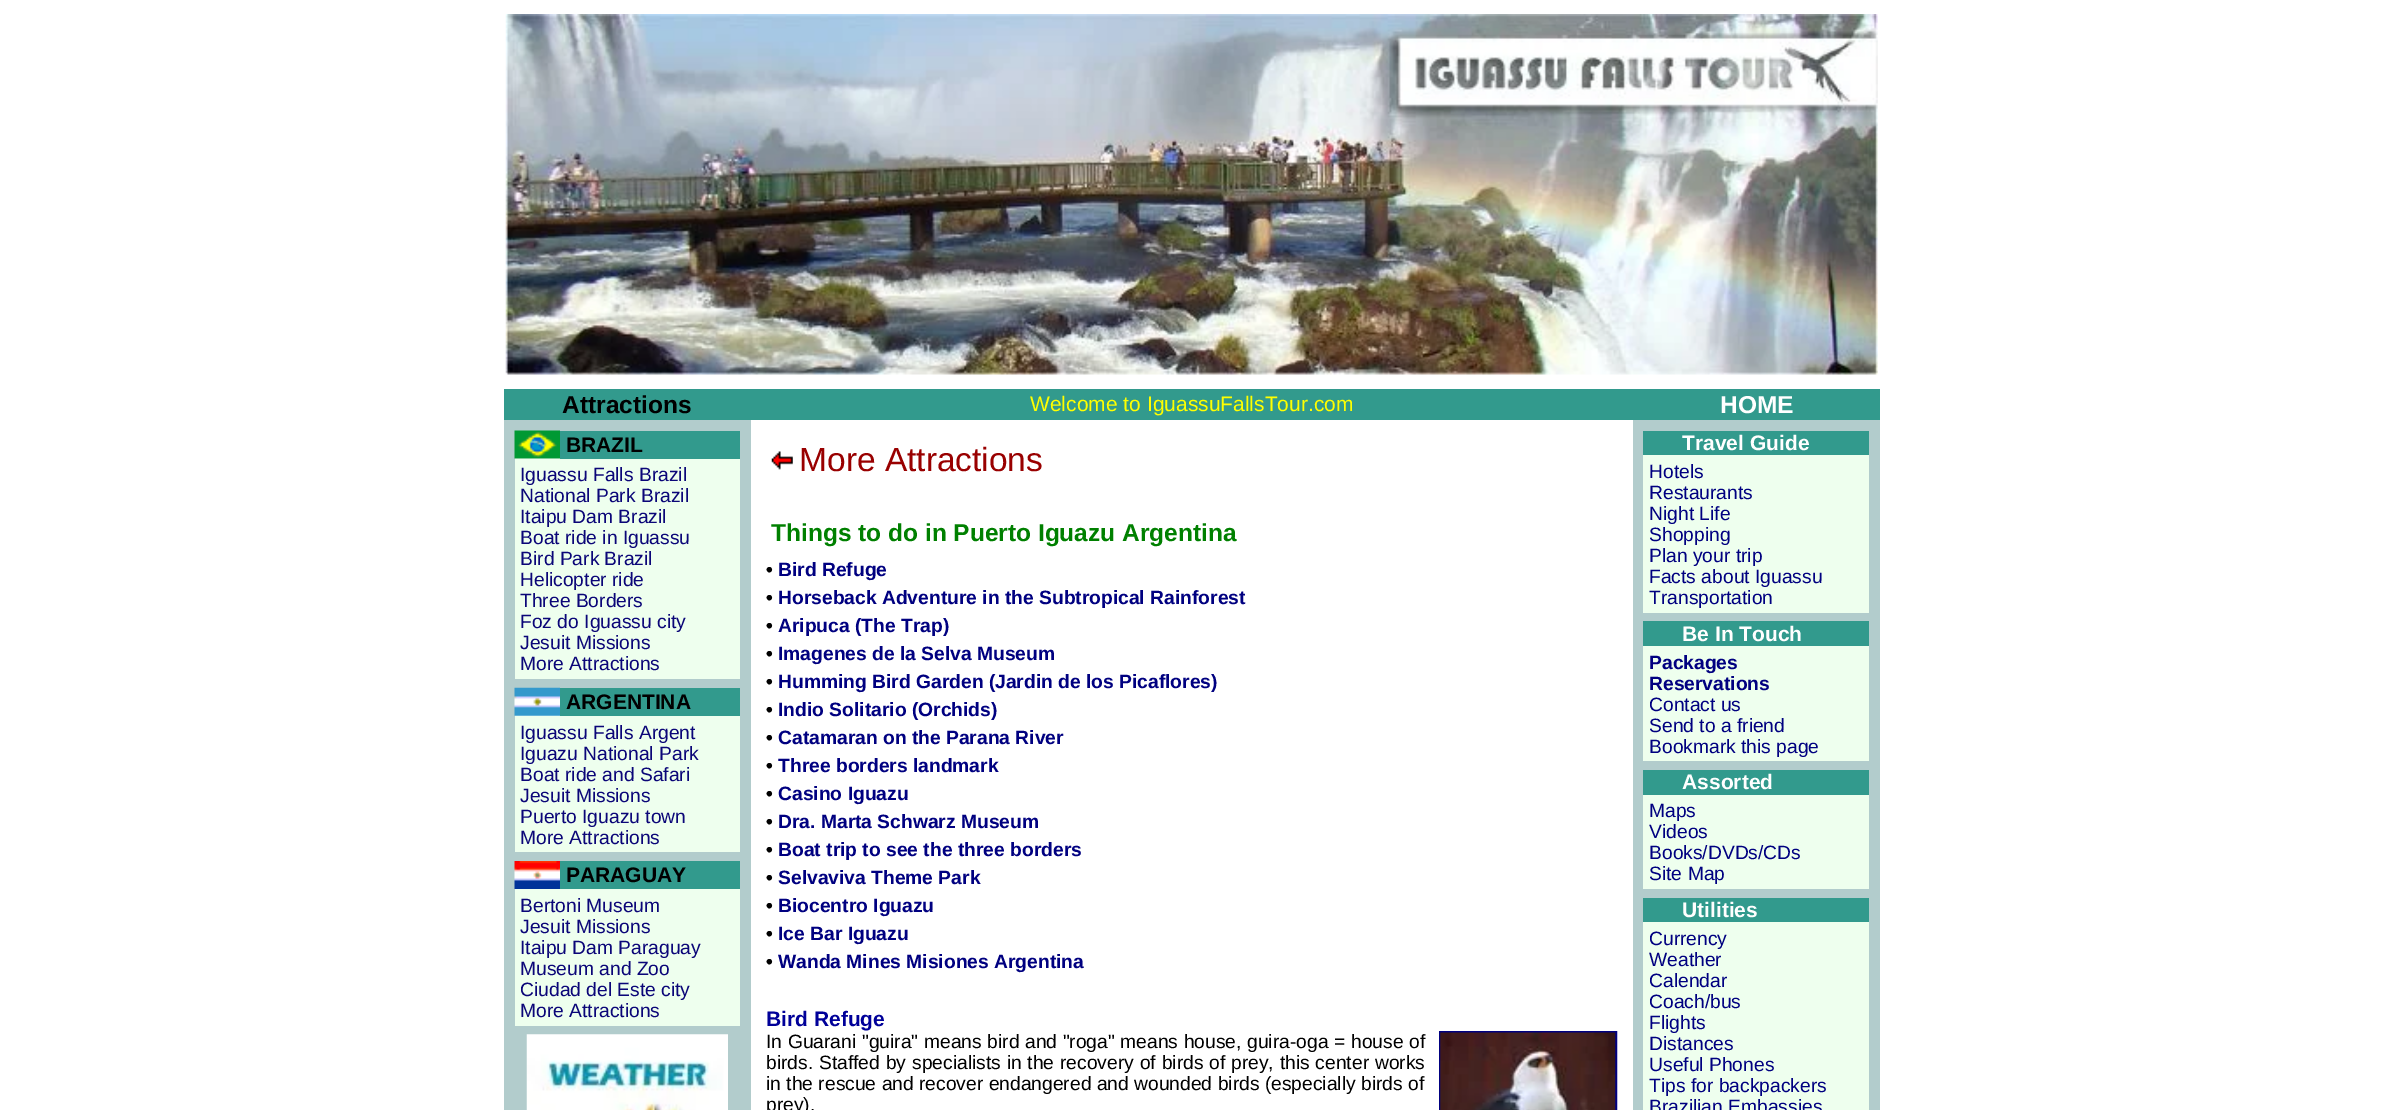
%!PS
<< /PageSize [2383 1110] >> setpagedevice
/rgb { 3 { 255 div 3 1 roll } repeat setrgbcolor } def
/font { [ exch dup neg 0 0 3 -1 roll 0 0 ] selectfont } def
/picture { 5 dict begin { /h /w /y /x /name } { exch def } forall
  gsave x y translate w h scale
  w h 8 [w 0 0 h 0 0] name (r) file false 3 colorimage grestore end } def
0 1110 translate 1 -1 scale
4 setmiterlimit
255 255 255 rgb
0 0 2383 1110 rectfill
(img/1.rgb) 505 14 1373 361 picture
[
  [504 389 1376 31 50 154 141]
  [504 420 247 690 178 204 204]
  [515 458 45 1 255 255 255]
] { aload pop rgb rectfill } forall
(img/2.rgb) 514 430 46 29 picture
50 154 141 rgb
560 431 180 28 rectfill
238 255 238 rgb
515 459 225 220 rectfill
(img/3.rgb) 514 687 46 29 picture
50 154 141 rgb
560 688 180 28 rectfill
238 255 238 rgb
515 716 225 136 rectfill
(img/4.rgb) 514 861 46 28 picture
50 154 141 rgb
560 861 180 28 rectfill
238 255 238 rgb
515 889 225 137 rectfill
(img/5.rgb) 526 1034 202 76 picture
(img/6.rgb) 771 451 22 19 picture
0 0 128 rgb
2 setlinewidth
1440 1032 176 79 rectstroke
(img/7.rgb) 1440 1032 176 78 picture
[
  [1633 420 247 690 178 204 204]
  [1643 431 226 24 50 154 141]
  [1643 455 226 158 238 255 238]
  [1643 621 226 25 50 154 141]
  [1643 646 226 115 238 255 238]
  [1643 770 226 25 50 154 141]
  [1643 795 226 94 238 255 238]
  [1643 898 226 24 50 154 141]
  [1643 922 226 188 238 255 238]
] { aload pop rgb rectfill } forall
/LiberationSans-Bold 24.5 font
0 0 0 rgb
562 413 moveto (Attractions) show
/LiberationSans-Regular 21 font
255 255 0 rgb
1030 411 moveto (Welcome to IguassuFallsTour.com) show
/LiberationSans-Bold 24.5 font
255 255 255 rgb
1720 413 moveto (HOME) show
/LiberationSans-Bold 21 font
0 0 0 rgb
566 452 moveto (BRAZIL) show
/LiberationSans-Regular 19.25 font
11 6 120 rgb
[
  [(Iguassu Falls Brazil) 520 481]
  [(National Park Brazil) 520 502]
  [(Itaipu Dam Brazil) 520 523]
  [(Boat ride in Iguassu) 520 544]
  [(Bird Park Brazil) 520 565]
  [(Helicopter ride) 520 586]
  [(Three Borders) 520 607]
  [(Foz do Iguassu city) 520 628]
  [(Jesuit Missions) 520 649]
  [(More Attractions) 520 670]
] { aload pop moveto show } forall
/LiberationSans-Bold 21 font
0 0 0 rgb
566 709 moveto (ARGENTINA) show
/LiberationSans-Regular 19.25 font
11 6 120 rgb
[
  [(Iguassu Falls Argent) 520 739]
  [(Iguazu National Park) 520 760]
  [(Boat ride and Safari) 520 781]
  [(Jesuit Missions) 520 802]
  [(Puerto Iguazu town) 520 823]
  [(More Attractions) 520 844]
] { aload pop moveto show } forall
/LiberationSans-Bold 21 font
0 0 0 rgb
566 882 moveto (PARAGUAY) show
/LiberationSans-Regular 19.25 font
11 6 120 rgb
[
  [(Bertoni Museum) 520 912]
  [(Jesuit Missions) 520 933]
  [(Itaipu Dam Paraguay) 520 954]
  [(Museum and Zoo) 520 975]
  [(Ciudad del Este city) 520 996]
  [(More Attractions) 520 1017]
] { aload pop moveto show } forall
/LiberationSans-Regular 33.5 font
153 0 0 rgb
799 471 moveto (More Attractions) show
/LiberationSans-Bold 24.5 font
0 128 0 rgb
771 541 moveto (Things to do in Puerto Iguazu Argentina) show
/LiberationSans-Bold 19.25 font
0 0 0 rgb
766 576 moveto (•) show
0 0 128 rgb
778 576 moveto (Bird Refuge) show
0 0 0 rgb
766 604 moveto (•) show
0 0 128 rgb
778 604 moveto (Horseback Adventure in the Subtropical Rainforest) show
0 0 0 rgb
766 632 moveto (•) show
0 0 128 rgb
778 632 moveto (Aripuca \(The Trap\)) show
0 0 0 rgb
766 660 moveto (•) show
0 0 128 rgb
778 660 moveto (Imagenes de la Selva Museum) show
0 0 0 rgb
766 688 moveto (•) show
0 0 128 rgb
778 688 moveto (Humming Bird Garden \(Jardin de los Picaflores\)) show
0 0 0 rgb
766 716 moveto (•) show
0 0 128 rgb
778 716 moveto (Indio Solitario \(Orchids\)) show
0 0 0 rgb
766 744 moveto (•) show
0 0 128 rgb
778 744 moveto (Catamaran on the Parana River) show
0 0 0 rgb
766 772 moveto (•) show
0 0 128 rgb
778 772 moveto (Three borders landmark) show
0 0 0 rgb
766 800 moveto (•) show
0 0 128 rgb
778 800 moveto (Casino Iguazu) show
0 0 0 rgb
766 828 moveto (•) show
0 0 128 rgb
778 828 moveto (Dra. Marta Schwarz Museum) show
0 0 0 rgb
766 856 moveto (•) show
0 0 128 rgb
778 856 moveto (Boat trip to see the three borders) show
0 0 0 rgb
766 884 moveto (•) show
0 0 128 rgb
778 884 moveto (Selvaviva Theme Park) show
0 0 0 rgb
766 912 moveto (•) show
0 0 128 rgb
778 912 moveto (Biocentro Iguazu) show
0 0 0 rgb
766 940 moveto (•) show
0 0 128 rgb
778 940 moveto (Ice Bar Iguazu) show
0 0 0 rgb
766 968 moveto (•) show
0 0 128 rgb
778 968 moveto (Wanda Mines Misiones Argentina) show
/LiberationSans-Bold 21 font
0 0 153 rgb
766 1026 moveto (Bird Refuge) show
/LiberationSans-Regular 19.25 font
0 0 0 rgb
766 1048 moveto 0.25 0 32 (In Guarani "guira" means bird and "roga" means house, guira-oga = house of) widthshow
766 1069 moveto 0.5 0 32 (birds. Staffed by specialists in the recovery of birds of prey, this center works) widthshow
766 1090 moveto (in the rescue and recover endangered and wounded birds \(especially birds of) show
766 1111 moveto (prey\).) show
/LiberationSans-Bold 21 font
255 255 255 rgb
1682 450 moveto (Travel Guide) show
/LiberationSans-Regular 19.25 font
0 0 128 rgb
[
  [(Hotels) 1649 478]
  [(Restaurants) 1649 499]
  [(Night Life) 1649 520]
  [(Shopping) 1649 541]
  [(Plan your trip) 1649 562]
  [(Facts about Iguassu) 1649 583]
  [(Transportation) 1649 604]
] { aload pop moveto show } forall
/LiberationSans-Bold 21 font
255 255 255 rgb
1682 641 moveto (Be In Touch) show
/LiberationSans-Bold 19.25 font
0 0 128 rgb
1649 669 moveto (Packages) show
1649 690 moveto (Reservations) show
/LiberationSans-Regular 19.25 font
[
  [(Contact us) 1649 711]
  [(Send to a friend) 1649 732]
  [(Bookmark this page) 1649 753]
] { aload pop moveto show } forall
/LiberationSans-Bold 21 font
255 255 255 rgb
1682 789 moveto (Assorted) show
/LiberationSans-Regular 19.25 font
0 0 128 rgb
[
  [(Maps) 1649 817]
  [(Videos) 1649 838]
  [(Books/DVDs/CDs) 1649 859]
  [(Site Map) 1649 880]
] { aload pop moveto show } forall
/LiberationSans-Bold 21 font
255 255 255 rgb
1682 917 moveto (Utilities) show
/LiberationSans-Regular 19.25 font
0 0 128 rgb
[
  [(Currency) 1649 945]
  [(Weather) 1649 966]
  [(Calendar) 1649 987]
  [(Coach/bus) 1649 1008]
  [(Flights) 1649 1029]
  [(Distances) 1649 1050]
  [(Useful Phones) 1649 1071]
  [(Tips for backpackers) 1649 1092]
  [(Brazilian Embassies) 1649 1113]
] { aload pop moveto show } forall
showpage
